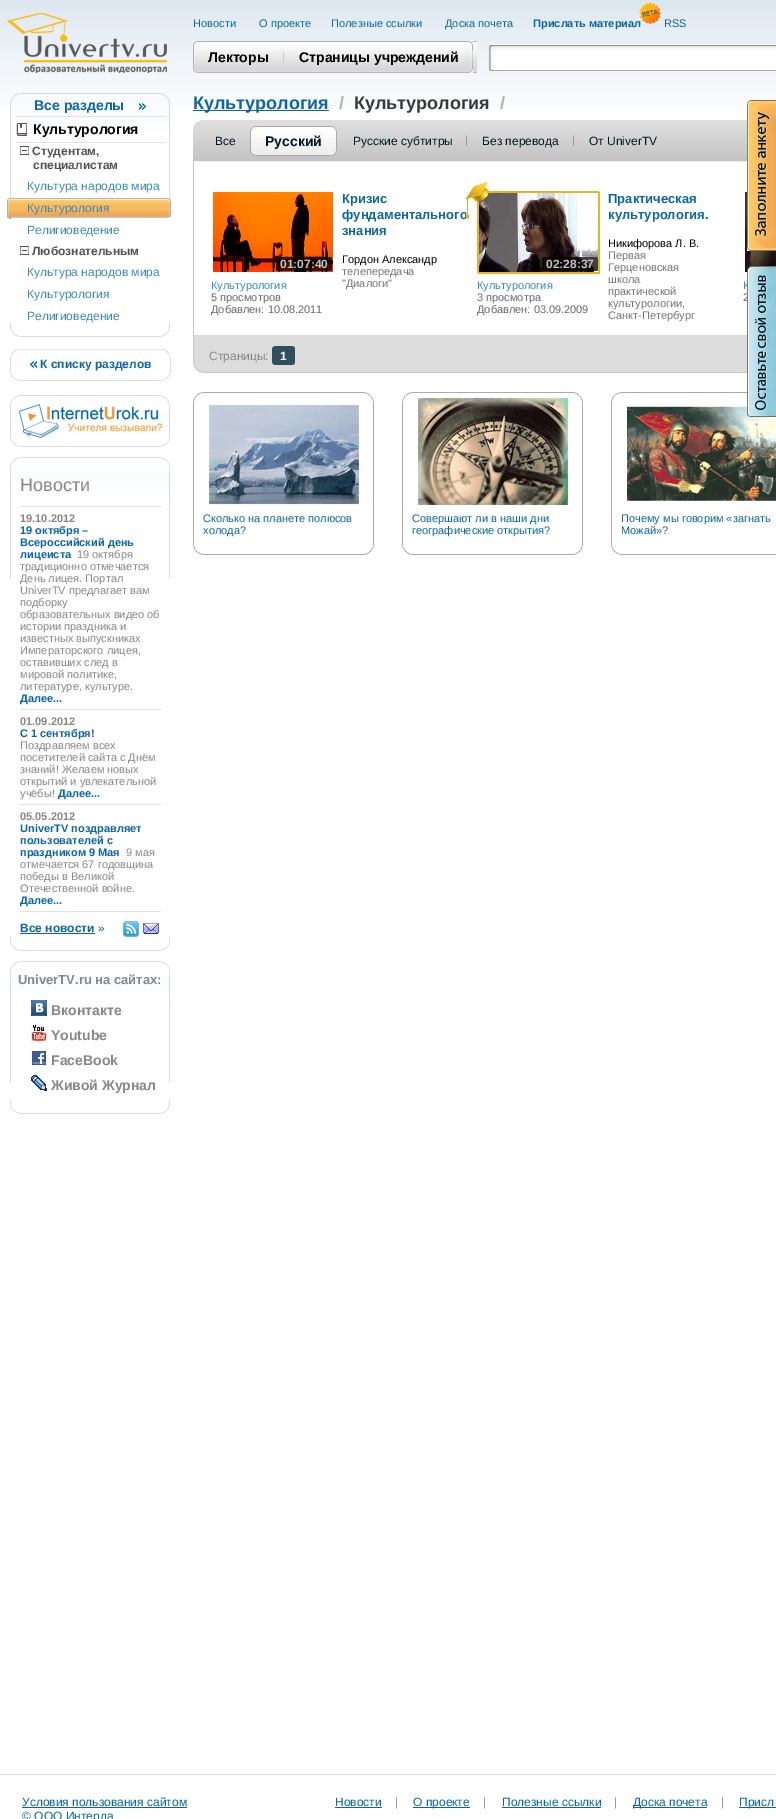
%!PS
<< /PageSize [776 1819] /PageUsesTransparency true >> setpagedevice
/rgb { 3 { 255 div 3 1 roll } repeat setrgbcolor } def
/font { [ exch dup neg 0 0 3 -1 roll 0 0 ] selectfont } def
/alpha { dup .setfillconstantalpha .setstrokeconstantalpha } def
/roundrect { 5 dict begin { /r /h /w /y /x } { exch def } forall
  x r add y moveto x w add y 2 copy h add r arct x w add y h add x 1 index r arct
  x y h add x y r arct x y 2 copy exch w add exch r arct closepath end } def
/picture { 5 dict begin { /h /w /y /x /name } { exch def } forall
  gsave x y translate w h scale
  w h 8 [w 0 0 h 0 0] name (r) file false 3 colorimage grestore end } def
0 .pushpdf14devicefilter
0 1819 translate 1 -1 scale
4 setmiterlimit
255 255 255 rgb
0 0 776 1819 rectfill
(img/1.rgb) 0 0 776 108 picture
(img/2.rgb) 7 13 160 60 picture
(img/3.rgb) 10 93 160 105 picture
(img/4.rgb) 10 322 160 15 picture
(img/5.rgb) 139 103 7 7 picture
223 225 226 rgb
16 116 150 1 rectfill
16 142 150 1 rectfill
(img/6.rgb) 16 123 11 13 picture
(img/7.rgb) 20 146 9 9 picture
(img/8.rgb) 7 204 164 7 picture
(img/9.rgb) 7 198 164 6 picture
(img/10.rgb) 7 211 164 8 picture
(img/7.rgb) 20 246 9 9 picture
(img/11.rgb) 10 349 161 32 picture
(img/12.rgb) 30 361 7 7 picture
(img/13.rgb) 10 395 160 43 picture
(img/14.rgb) 10 438 160 9 picture
(img/15.rgb) 19 404 143 34 picture
(img/16.rgb) 10 457 160 121 picture
(img/4.rgb) 10 936 160 15 picture
[
  [20 506 141 1 225 226 226]
  [20 709 141 1 225 226 226]
  [20 804 141 1 225 226 226]
  [20 911 141 1 225 226 226]
  [20 933 75 1 10 102 167]
] { aload pop rgb rectfill } forall
(img/17.rgb) 123 921 16 16 picture
(img/18.rgb) 143 923 16 11 picture
(img/16.rgb) 10 961 160 121 picture
(img/4.rgb) 10 1099 160 15 picture
(img/19.rgb) 31 1000 16 16 picture
(img/20.rgb) 31 1025 16 16 picture
(img/21.rgb) 32 1051 14 14 picture
(img/22.rgb) 31 1075 16 16 picture
(img/24.rgb) 197 41 280 32 picture
(img/25.rgb) 193 41 4 32 picture
(img/26.rgb) 469 41 4 32 picture
(img/27.rgb) 283 51 1 12 picture
(img/27.rgb) 472 51 1 12 picture
(img/28.rgb) 488 44 288 27 picture
255 255 255 rgb
493 49 4 18 rectfill
10 102 167 rgb
193 110 136 1 rectfill
(img/29.rgb) 193 120 554 41 picture
(img/30.rgb) 256 126 75 30 picture
(img/31.rgb) 250 126 6 30 picture
(img/32.rgb) 331 126 6 30 picture
(img/33.rgb) 466 135 1 11 picture
(img/33.rgb) 573 135 1 11 picture
199 199 199 rgb
193 161 1 174 rectfill
234 234 234 rgb
199 161 548 1 rectfill
(img/34.rgb) 213 192 120 80 picture
0.75 alpha
0 0 0 rgb
276 257 56 14 2 roundrect fill
1 alpha
(img/36.rgb) 479 192 119 80 picture
(img/37.rgb) 745 192 31 80 picture
(img/38.rgb) 193 335 555 38 picture
(img/39.rgb) 272 346 23 19 picture
(img/40.rgb) 193 392 181 163 picture
(img/41.rgb) 209 405 150 100 picture
(img/40.rgb) 402 392 181 163 picture
(img/42.rgb) 418 397 150 108 picture
(img/43.rgb) 611 392 165 163 picture
(img/44.rgb) 627 406 149 96 picture
(img/45.rgb) 747 100 29 151 picture
[
  [0 1774 776 1 222 222 222]
  [22 1807 165 1 10 102 167]
  [335 1807 47 1 10 102 167]
  [413 1807 57 1 10 102 167]
  [502 1807 99 1 10 102 167]
  [633 1807 74 1 10 102 167]
  [739 1807 37 1 10 102 167]
] { aload pop rgb rectfill } forall
/LiberationSans-Bold 14 font
34 110 moveto (Все разделы) show
0 0 0 rgb
33 134 moveto (Культурология) show
/LiberationSans-Bold 12 font
83 83 83 rgb
32 155 moveto (Студентам,) show
33 169 moveto (cпециалистам) show
/LiberationSans-Regular 12 font
62 136 187 rgb
[
  [(Культура народов мира) 27 190]
  [(Культурология) 27 212]
  [(Религиоведение) 27 234]
] { aload pop moveto show } forall
/LiberationSans-Bold 12 font
83 83 83 rgb
32 255 moveto (Любознательным) show
/LiberationSans-Regular 12 font
62 136 187 rgb
[
  [(Культура народов мира) 27 276]
  [(Культурология) 27 298]
  [(Религиоведение) 27 320]
] { aload pop moveto show } forall
/LiberationSans-Bold 12 font
10 102 167 rgb
40 368 moveto (К списку разделов) show
/LiberationSans-Regular 18 font
135 135 135 rgb
20 491 moveto (Новости) show
/LiberationSans-Bold 11 font
20 522 moveto (19.10.2012) show
10 102 167 rgb
[
  [(19 октября –) 20 534]
  [(Всероссийский день) 20 546]
  [(лицеиста) 20 558]
] { aload pop moveto show } forall
/LiberationSans-Regular 11 font
135 135 135 rgb
[
  [(19 октября) 77 558]
  [(традиционно отмечается) 20 570]
  [(День лицея. Портал) 20 582]
  [(UniverTV предлагает вам) 20 594]
  [(подборку) 20 606]
  [(образовательных видео об) 20 618]
  [(истории праздника и) 20 630]
  [(известных выпускниках) 20 642]
  [(Императорского лицея,) 20 654]
  [(оставивших след в) 20 666]
  [(мировой политике,) 20 678]
  [(литературе, культуре.) 20 690]
] { aload pop moveto show } forall
/LiberationSans-Bold 11 font
10 102 167 rgb
20 702 moveto (Далее...) show
135 135 135 rgb
20 725 moveto (01.09.2012) show
10 102 167 rgb
20 737 moveto (C 1 сентября!) show
/LiberationSans-Regular 11 font
135 135 135 rgb
[
  [(Поздравляем всех) 20 749]
  [(посетителей сайта с Днём) 20 761]
  [(знаний! Желаем новых) 20 773]
  [(открытий и увлекательной) 20 785]
  [(учёбы!) 20 797]
] { aload pop moveto show } forall
/LiberationSans-Bold 11 font
10 102 167 rgb
58 797 moveto (Далее...) show
135 135 135 rgb
20 820 moveto (05.05.2012) show
10 102 167 rgb
[
  [(UniverTV поздравляет) 20 832]
  [(пользователей с) 20 844]
  [(праздником 9 Мая) 20 856]
] { aload pop moveto show } forall
/LiberationSans-Regular 11 font
135 135 135 rgb
[
  [(9 мая) 126 856]
  [(отмечается 67 годовщина) 20 868]
  [(победы в Великой) 20 880]
  [(Отечественной войне.) 20 892]
] { aload pop moveto show } forall
/LiberationSans-Bold 11 font
10 102 167 rgb
20 904 moveto (Далее...) show
/LiberationSans-Bold 12 font
20 932 moveto (Все новости) show
/LiberationSans-Regular 12 font
98 932 moveto (») show
/LiberationSans-Bold 13 font
135 135 135 rgb
18 984 moveto (UniverTV.ru на сайтах:) show
/LiberationSans-Bold 14 font
[
  [(Вконтакте) 51 1015]
  [(Youtube) 51 1040]
  [(FaceBook) 51 1065]
  [(Живой Журнал) 51 1090]
] { aload pop moveto show } forall
/LiberationSans-Regular 11 font
10 102 167 rgb
[
  [(Новости) 193 27]
  [(О проекте) 259 27]
  [(Полезные cсылки) 331 27]
  [(Доска почета) 445 27]
] { aload pop moveto show } forall
/LiberationSans-Bold 11 font
533 27 moveto (Прислать материал) show
(img/23.rgb) 639 2 22 22 picture
/LiberationSans-Regular 11 font
664 27 moveto (RSS) show
/LiberationSans-Bold 14 font
0 0 0 rgb
208 62 moveto (Лекторы) show
299 62 moveto (Страницы учреждений) show
/LiberationSans-Bold 18 font
10 102 167 rgb
193 109 moveto (Культурология) show
177 178 179 rgb
339 109 moveto (/) show
56 56 56 rgb
354 109 moveto (Культурология) show
177 178 179 rgb
500 109 moveto (/) show
/LiberationSans-Regular 12 font
0 23 34 rgb
215 145 moveto (Все) show
/LiberationSans-Bold 14 font
265 146 moveto (Русский) show
/LiberationSans-Regular 12 font
[
  [(Русские субтитры) 353 145]
  [(Без перевода) 482 145]
  [(От UniverTV) 589 145]
] { aload pop moveto show } forall
/LiberationSans-Bold 12 font
198 193 191 rgb
280 268 moveto (01:07:40) show
/LiberationSans-Regular 11 font
52 137 197 rgb
211 289 moveto (Культурология) show
102 102 102 rgb
211 301 moveto (5 просмотров) show
211 313 moveto (Добавлен: 10.08.2011) show
/LiberationSans-Bold 13 font
10 102 167 rgb
[
  [(Кризис) 342 203]
  [(фундаментального) 342 219]
  [(знания) 342 235]
] { aload pop moveto show } forall
/LiberationSans-Regular 11 font
0 0 0 rgb
342 263 moveto (Гордон Александр) show
116 116 116 rgb
342 275 moveto (телепередача) show
342 287 moveto ("Диалоги") show
(img/35.rgb) 465 181 135 93 picture
0.75 alpha
0 0 0 rgb
542 257 56 14 2 roundrect fill
/LiberationSans-Bold 12 font
1 alpha
198 193 191 rgb
546 268 moveto (02:28:37) show
/LiberationSans-Regular 11 font
52 137 197 rgb
477 289 moveto (Культурология) show
102 102 102 rgb
477 301 moveto (3 просмотра) show
477 313 moveto (Добавлен: 03.09.2009) show
/LiberationSans-Bold 13 font
10 102 167 rgb
608 203 moveto (Практическая) show
608 219 moveto (культурология.) show
/LiberationSans-Regular 11 font
0 0 0 rgb
608 247 moveto (Никифорова Л. В.) show
116 116 116 rgb
[
  [(Первая) 608 259]
  [(Герценовская) 608 271]
  [(школа) 608 283]
  [(практической) 608 295]
  [(культурологии,) 608 307]
  [(Санкт-Петербург) 608 319]
] { aload pop moveto show } forall
52 137 197 rgb
743 289 moveto (К) show
102 102 102 rgb
743 301 moveto (2) show
/LiberationSans-Regular 12 font
135 135 135 rgb
209 360 moveto (Страницы:) show
/LiberationSans-Bold 12 font
255 255 255 rgb
280 360 moveto (1) show
/LiberationSans-Regular 11 font
10 102 167 rgb
[
  [(Сколько на планете полюсов) 203 522]
  [(холода?) 203 534]
  [(Совершают ли в наши дни) 412 522]
  [(географические открытия?) 412 534]
  [(Почему мы говорим «загнать) 621 522]
  [(Можай»?) 621 534]
] { aload pop moveto show } forall
(img/46.rgb) 747 266 29 151 picture
/LiberationSans-Regular 12 font
[
  [(Условия пользования сайтом) 22 1806]
  [(© ООО Интерда) 22 1820]
  [(Новости) 335 1806]
] { aload pop moveto show } forall
153 153 153 rgb
395 1806 moveto (|) show
10 102 167 rgb
413 1806 moveto (О проекте) show
153 153 153 rgb
483 1806 moveto (|) show
10 102 167 rgb
502 1806 moveto (Полезные cсылки) show
153 153 153 rgb
614 1806 moveto (|) show
10 102 167 rgb
633 1806 moveto (Доска почета) show
153 153 153 rgb
721 1806 moveto (|) show
10 102 167 rgb
739 1806 moveto (Присл) show
.poppdf14devicefilter showpage
